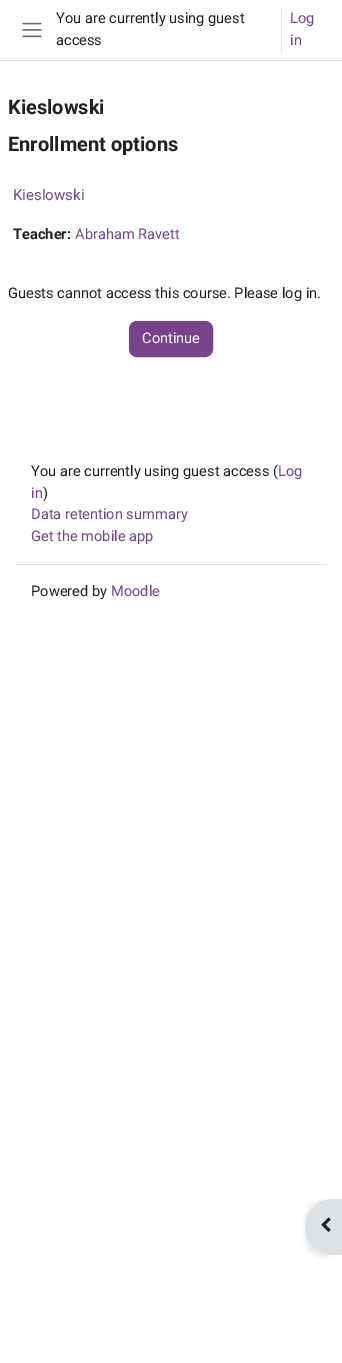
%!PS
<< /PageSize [342 1363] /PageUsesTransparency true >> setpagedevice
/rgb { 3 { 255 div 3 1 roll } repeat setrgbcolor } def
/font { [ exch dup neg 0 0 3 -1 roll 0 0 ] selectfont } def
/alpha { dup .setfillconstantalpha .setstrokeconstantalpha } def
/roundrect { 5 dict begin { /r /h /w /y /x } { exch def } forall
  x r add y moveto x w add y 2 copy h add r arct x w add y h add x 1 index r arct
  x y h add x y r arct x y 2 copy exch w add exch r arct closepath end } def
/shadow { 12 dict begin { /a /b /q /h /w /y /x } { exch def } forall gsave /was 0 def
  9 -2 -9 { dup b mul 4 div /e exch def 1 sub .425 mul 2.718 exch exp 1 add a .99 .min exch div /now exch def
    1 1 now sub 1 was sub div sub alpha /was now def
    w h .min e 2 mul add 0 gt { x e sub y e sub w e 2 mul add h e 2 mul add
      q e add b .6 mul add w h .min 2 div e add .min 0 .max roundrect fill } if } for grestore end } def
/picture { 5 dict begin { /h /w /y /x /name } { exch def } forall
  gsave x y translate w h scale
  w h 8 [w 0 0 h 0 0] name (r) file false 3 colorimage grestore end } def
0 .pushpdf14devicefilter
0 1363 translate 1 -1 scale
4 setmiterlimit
255 255 255 rgb
0 0 342 1363 rectfill
222 226 230 rgb
0 60 342 1 rectfill
(img/1.rgb) 22 22 20 16 picture
281 8 1 45 rectfill
119 68 139 rgb
129.5 321.5 83 35 7.5 roundrect gsave fill grestore
stroke
0 0 0 rgb
305 1201 37 56 28 2 0.07 shadow
222 226 230 rgb
333 1199 moveto 342 1199 lineto 342 1255 lineto 333 1255 lineto 317.5 1255 305 1242.5 305 1227 curveto 305 1211.5 317.5 1199 333 1199 curveto closepath fill
(img/2.rgb) 321 1217 10 15 picture
15 564 312 1 rectfill
/Roboto-Regular 14.6 font
29 33 37 rgb
56 23 moveto (You are currently using guest) show
119 68 139 rgb
290 23 moveto (Log) show
290 45 moveto (in) show
29 33 37 rgb
56 45 moveto (access) show
/Roboto-Bold 20 font
8 114 moveto (Kieslowski) show
8 151 moveto (Enrollment options) show
/Roboto-Regular 15 font
119 68 139 rgb
13 200 moveto (Kieslowski) show
/Roboto-Bold 14.6 font
29 33 37 rgb
13 239 moveto (Teacher:) show
/Roboto-Regular 14.6 font
119 68 139 rgb
75 239 moveto (Abraham Ravett) show
29 33 37 rgb
8 298 moveto (Guests cannot access this course. Please log in.) show
255 255 255 rgb
142 343 moveto (Continue) show
29 33 37 rgb
31 476 moveto (You are currently using guest access \() show
119 68 139 rgb
278 476 moveto (Log) show
31 498 moveto (in) show
29 33 37 rgb
43 498 moveto (\)) show
119 68 139 rgb
31 519 moveto (Data retention summary) show
31 541 moveto (Get the mobile app) show
29 33 37 rgb
31 596 moveto (Powered by) show
119 68 139 rgb
111 596 moveto (Moodle) show
.poppdf14devicefilter showpage
